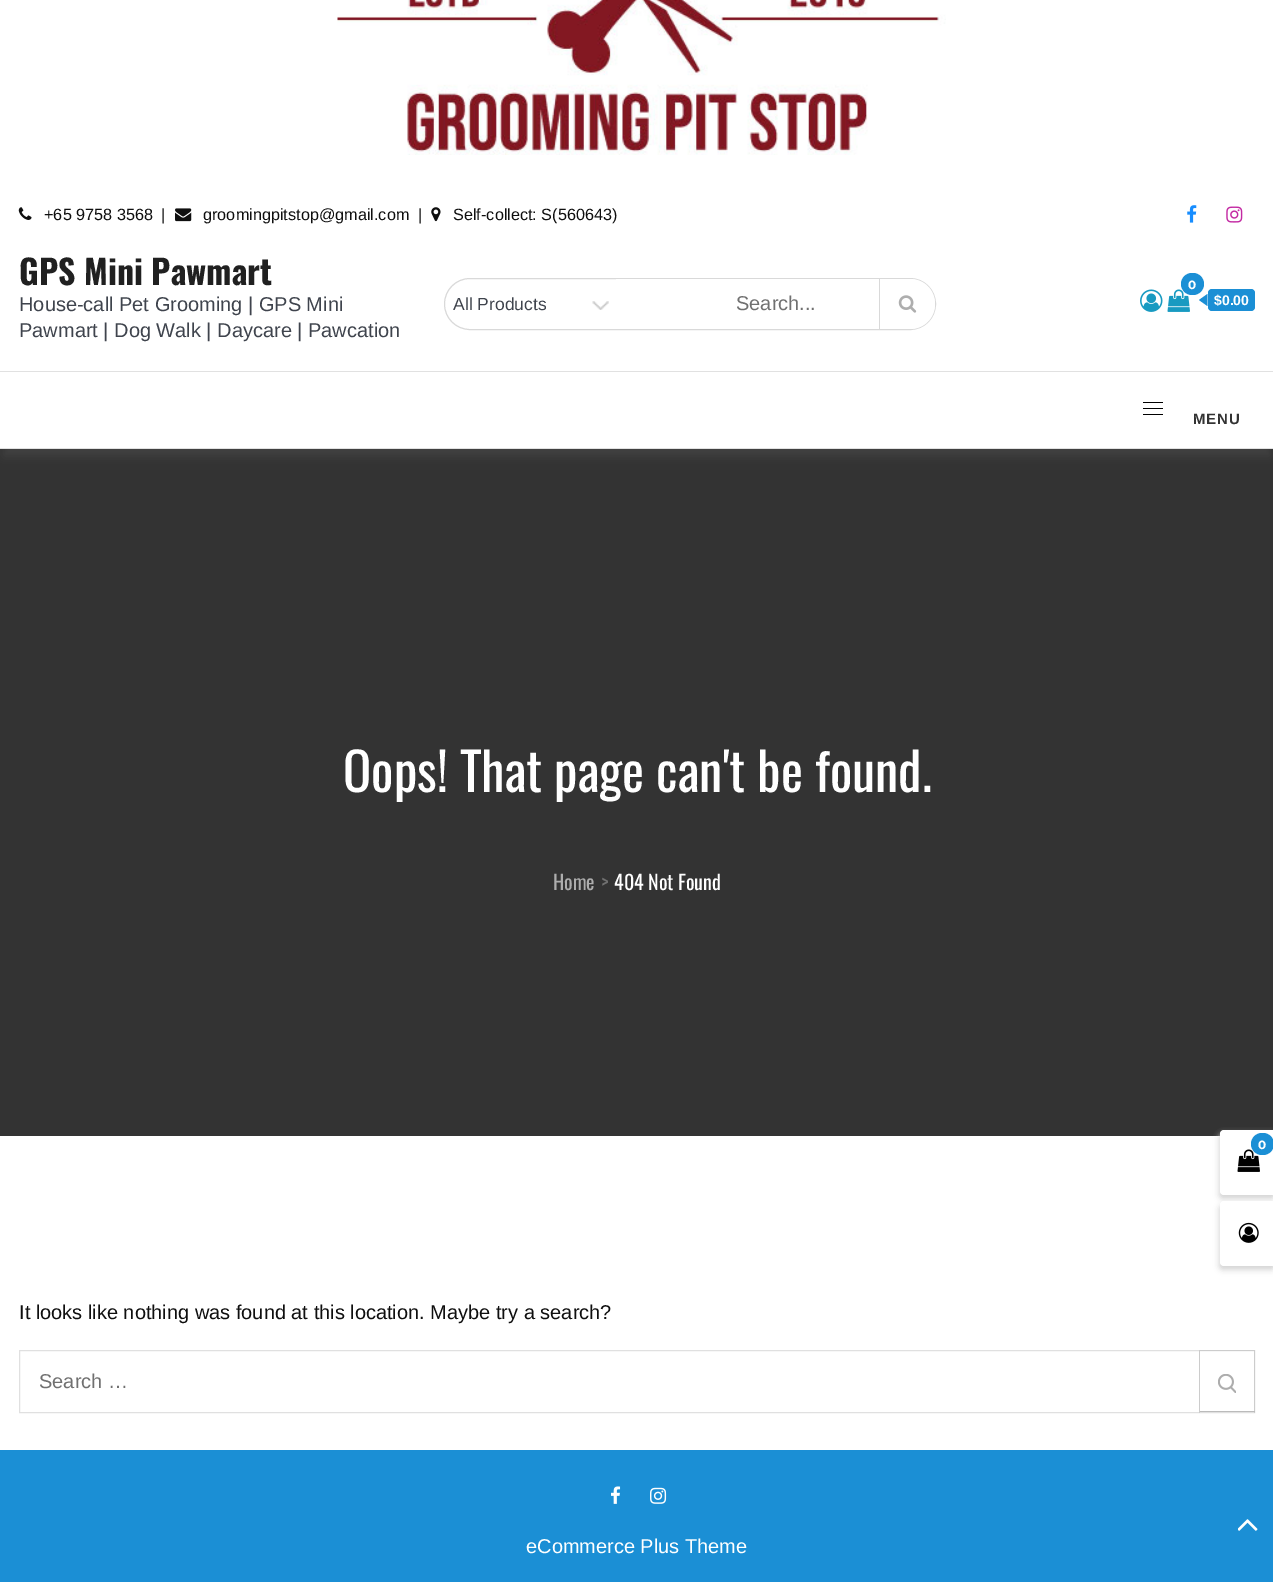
%!PS
<< /PageSize [1273 1582] /PageUsesTransparency true >> setpagedevice
/rgb { 3 { 255 div 3 1 roll } repeat setrgbcolor } def
/font { [ exch dup neg 0 0 3 -1 roll 0 0 ] selectfont } def
/alpha { dup .setfillconstantalpha .setstrokeconstantalpha } def
/roundrect { 5 dict begin { /r /h /w /y /x } { exch def } forall
  x r add y moveto x w add y 2 copy h add r arct x w add y h add x 1 index r arct
  x y h add x y r arct x y 2 copy exch w add exch r arct closepath end } def
/shadow { 12 dict begin { /a /b /q /h /w /y /x } { exch def } forall gsave /was 0 def
  9 -2 -9 { dup b mul 4 div /e exch def 1 sub .425 mul 2.718 exch exp 1 add a .99 .min exch div /now exch def
    1 1 now sub 1 was sub div sub alpha /was now def
    w h .min e 2 mul add 0 gt { x e sub y e sub w e 2 mul add h e 2 mul add
      q e add b .6 mul add w h .min 2 div e add .min 0 .max roundrect fill } if } for grestore end } def
/picture { 5 dict begin { /h /w /y /x /name } { exch def } forall
  gsave x y translate w h scale
  w h 8 [w 0 0 h 0 0] name (r) file false 3 colorimage grestore end } def
0 .pushpdf14devicefilter
0 1582 translate 1 -1 scale
4 setmiterlimit
255 255 255 rgb
0 0 1273 1582 rectfill
51 51 51 rgb
0 449 1273 687 rectfill
130 130 130 rgb
4 -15 1266 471 0 5 0.18 shadow
255 255 255 rgb
0 0 1273 448 rectfill
(img/1.rgb) 337 0 609 155 picture
(img/2.rgb) 18 207 14 13 picture
(img/3.rgb) 175 208 17 14 picture
(img/4.rgb) 431 207 10 15 picture
(img/5.rgb) 1187 205 10 18 picture
(img/6.rgb) 1226 206 17 17 picture
217 217 217 rgb
444.5 278.5 491 51 25.5 roundrect stroke
(img/7.rgb) 592 301 17 9 picture
255 255 255 rgb
616 279 moveto 910 279 lineto 924 279 935 290 935 304 curveto 935 318 924 329 910 329 curveto 616 329 lineto closepath fill
217 217 217 rgb
879 279 1 50 rectfill
(img/8.rgb) 898 295 19 18 picture
(img/9.rgb) 1140 289 23 23 picture
(img/10.rgb) 1167 289 23 23 picture
27 143 213 rgb
1181 273 23 22 11 roundrect fill
1208 289 47 22 4 roundrect fill
1207.5 294 moveto 1207.5 306 lineto 1199 300 lineto closepath fill
[
  [0 371 1273 1 225 225 225]
  [0 448 1273 1 225 225 225]
  [1143 402 20 1 0 0 0]
  [1143 408 20 1 0 0 0]
  [1143 414 20 1 0 0 0]
] { aload pop rgb rectfill } forall
224 224 224 rgb
19.5 1350.5 1235 62 rectstroke
[
  [1199 1350 56 1 204 204 204]
  [1254 1350 1 63 204 204 204]
  [1199 1411 56 1 187 187 187]
  [1199 1350 1 63 204 204 204]
] { aload pop rgb rectfill } forall
(img/11.rgb) 1218 1374 18 19 picture
212 212 212 rgb
1219 1134 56 65 4 3 1 shadow
255 255 255 rgb
1220 1130 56 65 4 roundrect fill
(img/12.rgb) 1237 1149 23 23 picture
27 143 213 rgb
1251 1133 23 22 11 roundrect fill
212 212 212 rgb
1219 1205 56 65 4 3 1 shadow
255 255 255 rgb
1220 1201 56 65 4 roundrect fill
(img/13.rgb) 1238 1222 21 21 picture
27 143 213 rgb
0 1450 1273 132 rectfill
(img/14.rgb) 1238 1519 20 12 picture
(img/15.rgb) 611 1486 10 18 picture
(img/16.rgb) 650 1487 17 17 picture
/LiberationSans-Regular 16.25 font
15 15 15 rgb
[
  [(+65 9758 3568) 44 220]
  [(|) 161 220]
  [(groomingpitstop@gmail.com) 203 220]
  [(|) 418 220]
  [(Self-collect: S\(560643\)) 453 220]
] { aload pop moveto show } forall
/Oswald-Bold 33.75 font
32 32 32 rgb
19 285 moveto (GPS Mini Pawmart) show
/LiberationSans-Regular 20 font
63 68 77 rgb
19 311 moveto (House-call Pet Grooming | GPS Mini) show
19 337 moveto (Pawmart | Dog Walk | Daycare | Pawcation) show
/LiberationSans-Regular 17.5 font
453 310 moveto (All Products) show
/LiberationSans-Regular 20 font
112 112 112 rgb
736 310 moveto (Search...) show
/Montserrat-Bold 12 font
255 255 255 rgb
1188 289 moveto (0) show
/LiberationSans-Bold 14 font
1214 305 moveto ($0.00) show
/LiberationSans-Bold 15 font
51 51 51 rgb
1193 424 moveto 1 0 (MENU) ashow
/Oswald-Regular 52.5 font
255 255 255 rgb
343 792 moveto (Oops! That page can't be found.) show
/Oswald-Regular 20 font
173 173 173 rgb
553 890 moveto (Home) show
112 112 112 rgb
601 890 moveto (>) show
255 255 255 rgb
614 890 moveto (404 Not Found) show
/LiberationSans-Regular 20 font
15 15 15 rgb
19 1319 moveto (It looks like nothing was found at this location. Maybe try a search?) show
112 112 112 rgb
39 1388 moveto (Search …) show
/Montserrat-Bold 12 font
255 255 255 rgb
1258 1149 moveto (0) show
/LiberationSans-Regular 20 font
526 1553 moveto (eCommerce Plus Theme) show
.poppdf14devicefilter showpage
